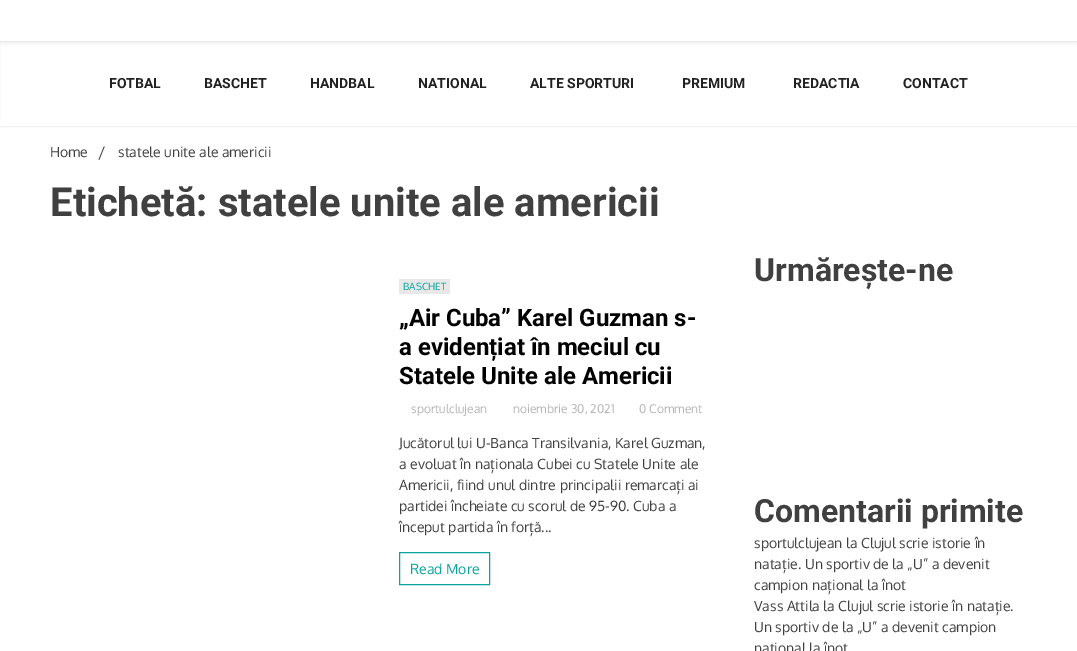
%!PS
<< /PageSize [1077 651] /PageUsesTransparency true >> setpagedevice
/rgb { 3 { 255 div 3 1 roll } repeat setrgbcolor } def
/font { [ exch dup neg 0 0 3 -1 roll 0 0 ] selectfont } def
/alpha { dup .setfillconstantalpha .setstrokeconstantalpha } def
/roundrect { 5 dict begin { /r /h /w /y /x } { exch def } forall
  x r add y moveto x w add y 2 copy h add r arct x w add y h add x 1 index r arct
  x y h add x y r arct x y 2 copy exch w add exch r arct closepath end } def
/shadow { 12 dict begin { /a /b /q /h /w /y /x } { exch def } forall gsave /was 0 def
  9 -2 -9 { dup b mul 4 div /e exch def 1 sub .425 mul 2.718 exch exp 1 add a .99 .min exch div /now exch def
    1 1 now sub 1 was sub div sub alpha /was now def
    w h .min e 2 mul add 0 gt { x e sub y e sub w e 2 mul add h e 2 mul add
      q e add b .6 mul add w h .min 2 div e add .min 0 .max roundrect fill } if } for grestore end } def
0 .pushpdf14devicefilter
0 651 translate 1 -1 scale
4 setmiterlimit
255 255 255 rgb
0 0 1077 651 rectfill
240 240 240 rgb
-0.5 40.5 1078 86 rectstroke
0 0 0 rgb
0 0 1077 41 0 3 0.15 shadow
255 255 255 rgb
0 0 1077 41 rectfill
232 232 232 rgb
399 279 51 15 rectfill
10 164 157 rgb
399.5 552.5 90 32 rectstroke
/Roboto-Bold 14 font
34 34 34 rgb
[
  [(FOTBAL) 109 88]
  [(BASCHET) 204 88]
  [(HANDBAL) 310 88]
  [(NATIONAL) 418 88]
  [(ALTE SPORTURI) 530 88]
  [(PREMIUM) 682 88]
  [(REDACTIA) 793 88]
  [(CONTACT) 903 88]
] { aload pop moveto show } forall
/Oxygen-Regular 14 font
64 64 64 rgb
50 157 moveto (Home) show
/Oxygen-Regular 16 font
98 158 moveto (/) show
/Oxygen-Regular 14 font
118 157 moveto (statele unite ale americii) show
/Roboto-Bold 40 font
50 216 moveto (Etichetă: statele unite ale americii) show
/Oxygen-Regular 10 font
10 164 157 rgb
403 290 moveto (BASCHET) show
/Roboto-Bold 24 font
0 0 0 rgb
[
  [(„Air Cuba” Karel Guzman s-) 399 326]
  [(a evidențiat în meciul cu) 399 355]
  [(Statele Unite ale Americii) 399 384]
] { aload pop moveto show } forall
/Oxygen-Regular 12 font
181 181 181 rgb
[
  [(sportulclujean) 411 413]
  [(noiembrie 30, 2021) 513 413]
  [(0 Comment) 639 413]
] { aload pop moveto show } forall
/Oxygen-Regular 14 font
64 64 64 rgb
[
  [(Jucătorul lui U-Banca Transilvania, Karel Guzman,) 399 448]
  [(a evoluat în naționala Cubei cu Statele Unite ale) 399 469]
  [(Americii, fiind unul dintre principalii remarcați ai) 399 490]
  [(partidei încheiate cu scorul de 95-90. Cuba a) 399 511]
  [(început partida în forță...) 399 532]
] { aload pop moveto show } forall
10 164 157 rgb
410 574 moveto (Read More) show
/Roboto-Bold 32 font
64 64 64 rgb
754 281 moveto (Urmărește-ne) show
754 522 moveto (Comentarii primite) show
/Oxygen-Regular 14 font
[
  [(sportulclujean la Clujul scrie istorie în) 754 548]
  [(natație. Un sportiv de la „U” a devenit) 754 569]
  [(campion național la înot) 754 590]
  [(Vass Attila la Clujul scrie istorie în natație.) 754 611]
  [(Un sportiv de la „U” a devenit campion) 754 632]
  [(național la înot) 754 653]
] { aload pop moveto show } forall
.poppdf14devicefilter showpage
